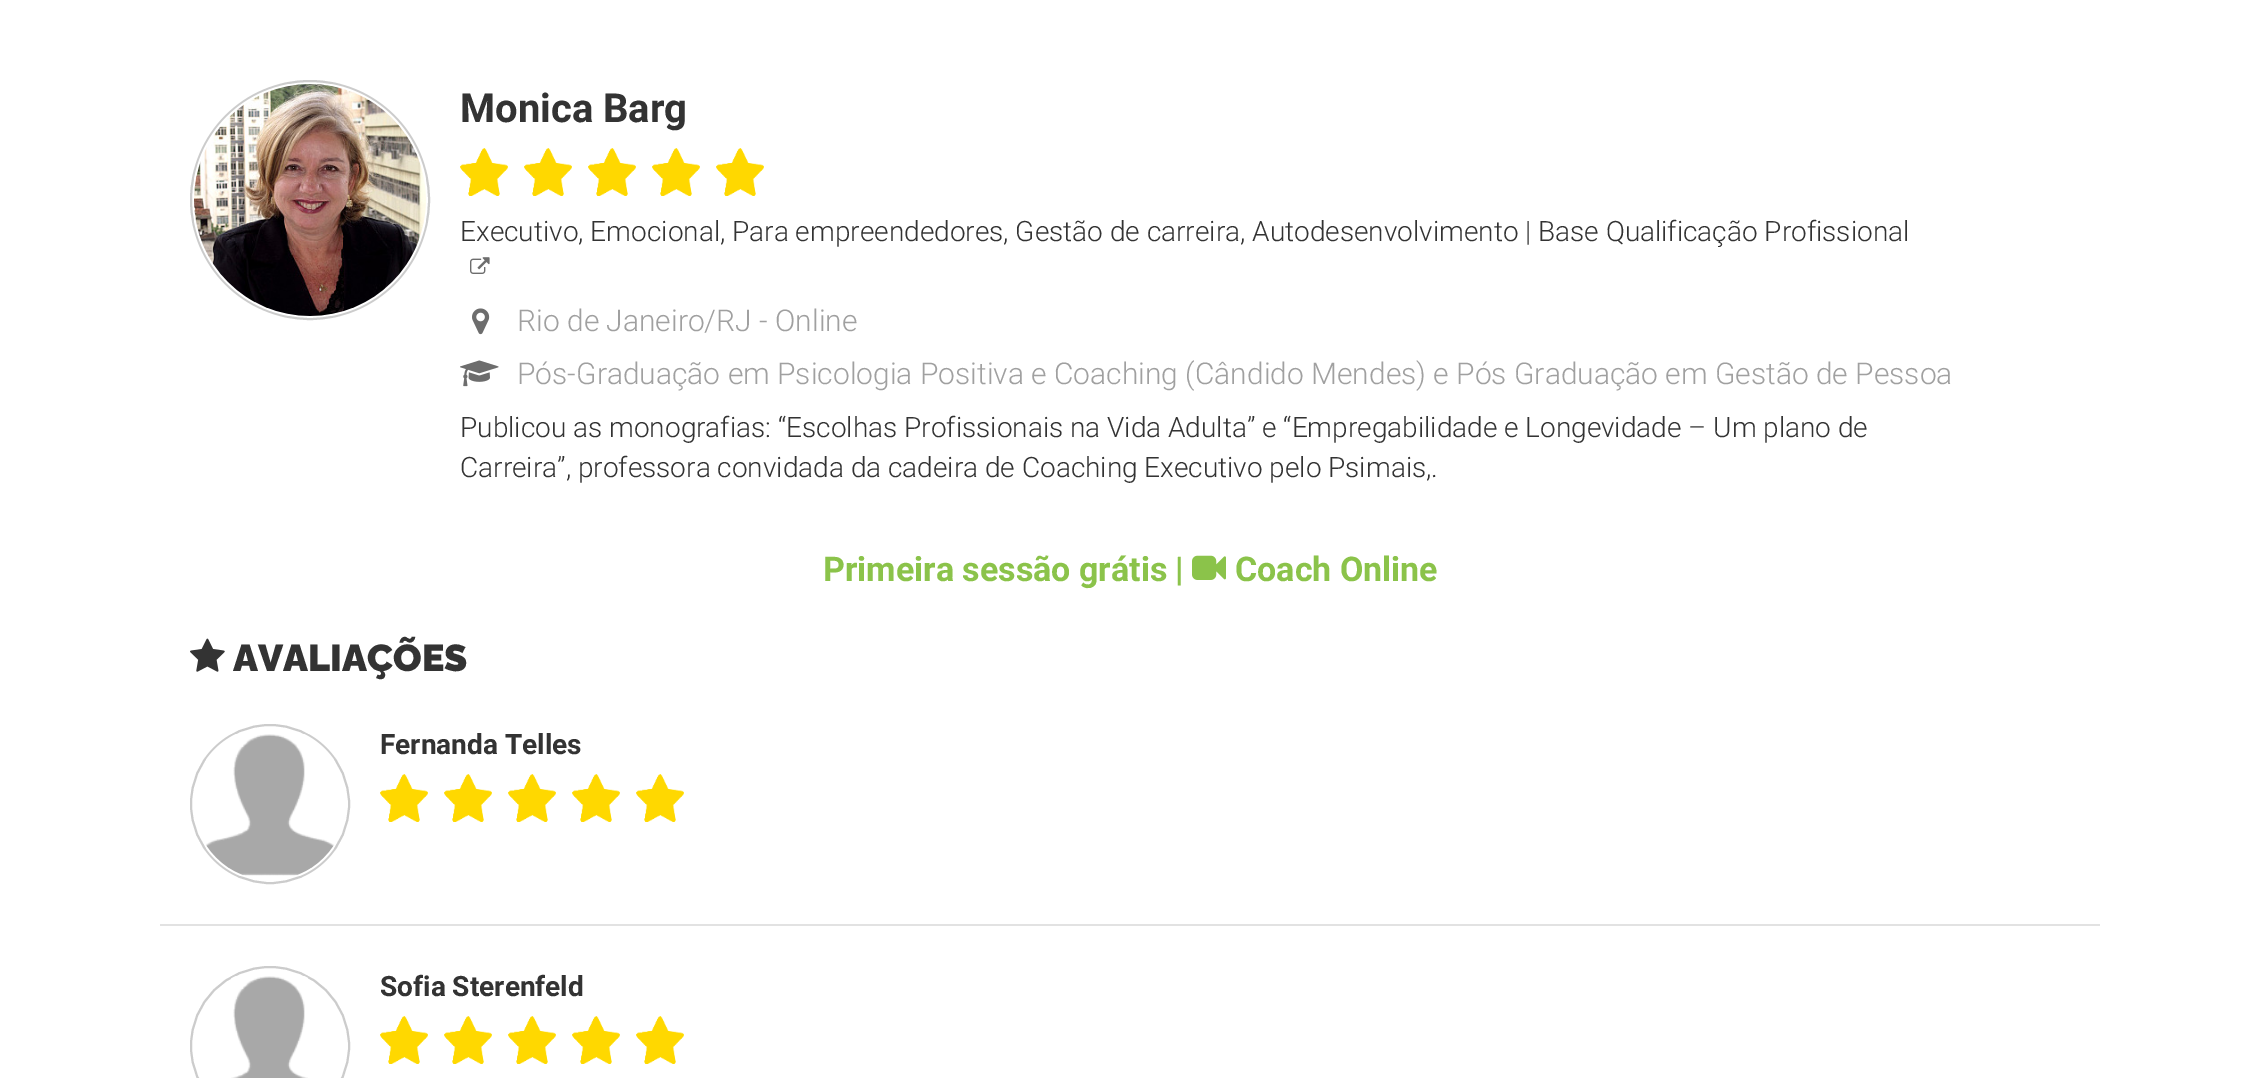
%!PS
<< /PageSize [2260 1078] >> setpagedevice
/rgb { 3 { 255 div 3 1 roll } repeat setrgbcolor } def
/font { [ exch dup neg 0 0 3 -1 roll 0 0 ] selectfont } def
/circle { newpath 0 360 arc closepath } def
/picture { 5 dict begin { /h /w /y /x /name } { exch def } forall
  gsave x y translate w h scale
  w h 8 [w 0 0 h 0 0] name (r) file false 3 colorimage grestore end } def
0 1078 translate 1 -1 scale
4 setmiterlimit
255 255 255 rgb
0 0 2260 1078 rectfill
204 204 204 rgb
2 setlinewidth
310 200 119 circle stroke
(img/1.rgb) 194 84 232 232 picture
(img/2.rgb) 460 148 48 48 picture
(img/3.rgb) 524 148 48 48 picture
(img/2.rgb) 588 148 48 48 picture
(img/4.rgb) 652 148 48 48 picture
(img/2.rgb) 716 148 48 48 picture
(img/5.rgb) 470 257 20 17 picture
(img/6.rgb) 472 308 18 27 picture
(img/7.rgb) 460 360 39 27 picture
(img/8.rgb) 1192 555 34 25 picture
(img/9.rgb) 190 638 35 34 picture
226 226 226 rgb
160 924 1940 2 rectfill
204 204 204 rgb
270 804 79 circle stroke
(img/10.rgb) 206 734 128 142 picture
(img/4.rgb) 380 774 48 48 picture
(img/2.rgb) 444 774 48 48 picture
(img/4.rgb) 508 774 48 48 picture
(img/2.rgb) 572 774 48 48 picture
(img/4.rgb) 636 774 48 48 picture
270 1046 79 circle stroke
(img/11.rgb) 231 976 77 102 picture
(img/4.rgb) 380 1016 48 48 picture
(img/2.rgb) 444 1016 48 48 picture
(img/4.rgb) 508 1016 48 48 picture
(img/2.rgb) 572 1016 48 48 picture
(img/4.rgb) 636 1016 48 48 picture
/Roboto-Bold 40 font
51 51 51 rgb
460 122 moveto (Monica Barg) show
/Roboto-Light 28 font
460 241 moveto (Executivo, Emocional, Para empreendedores, Gestão de carreira, Autodesenvolvimento | Base Qualificação Profissional) show
/Roboto-Light 30 font
160 160 160 rgb
517 331 moveto (Rio de Janeiro/RJ - Online) show
517 384 moveto (Pós-Graduação em Psicologia Positiva e Coaching \(Cândido Mendes\) e Pós Graduação em Gestão de Pessoa) show
/Roboto-Light 28 font
51 51 51 rgb
460 437 moveto (Publicou as monografias: “Escolhas Profissionais na Vida Adulta” e “Empregabilidade e Longevidade – Um plano de) show
460 477 moveto (Carreira”, professora convidada da cadeira de Coaching Executivo pelo Psimais,.) show
/Roboto-Bold 34 font
139 195 74 rgb
823 581 moveto (Primeira sessão grátis |) show
1235 581 moveto (Coach Online) show
/Raleway-Thin 37.5 font
51 51 51 rgb
233 671 moveto (AVALIAÇÕES) show
/Roboto-Bold 28 font
380 754 moveto (Fernanda Telles) show
380 996 moveto (Sofia Sterenfeld) show
showpage
